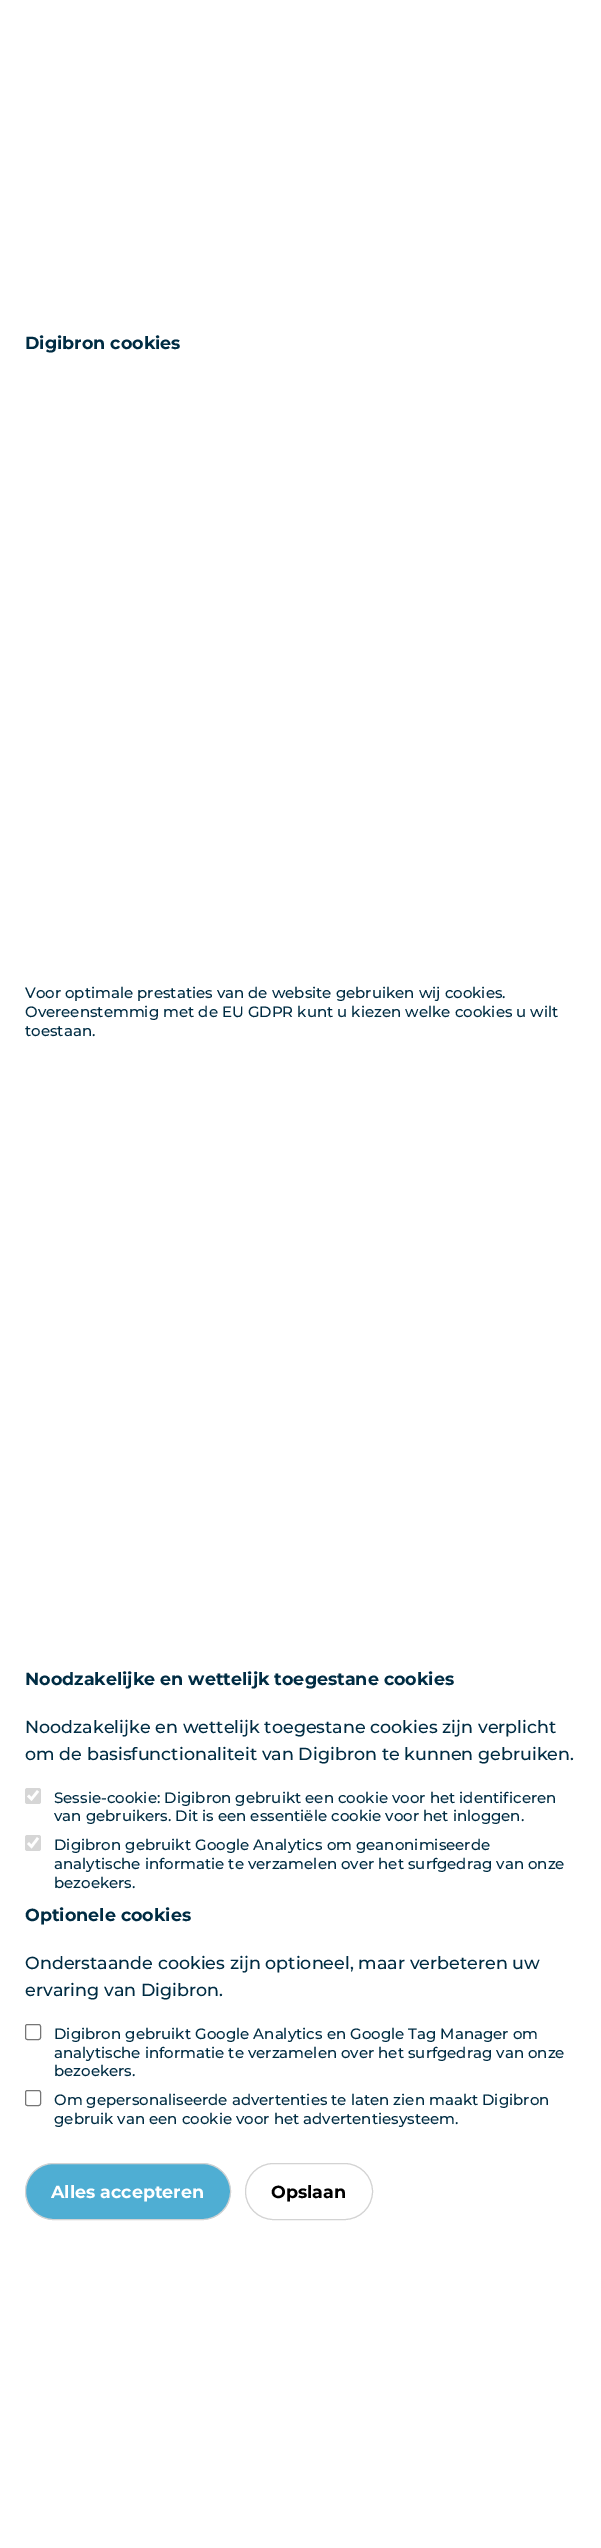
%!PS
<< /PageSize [601 2548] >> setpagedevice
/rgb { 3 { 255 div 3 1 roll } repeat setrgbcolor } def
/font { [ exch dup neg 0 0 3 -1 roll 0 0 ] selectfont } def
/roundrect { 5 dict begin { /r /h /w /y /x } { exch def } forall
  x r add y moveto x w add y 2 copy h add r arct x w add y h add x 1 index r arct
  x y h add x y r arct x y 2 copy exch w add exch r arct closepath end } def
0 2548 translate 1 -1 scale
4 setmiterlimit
255 255 255 rgb
0 0 601 2548 rectfill
214 214 214 rgb
25 1788 16 16 2.5 roundrect fill
255 255 255 rgb
2.6 setlinewidth
28 1795.5 moveto 31.5 1799 lineto 38 1791 lineto stroke
214 214 214 rgb
25 1835 16 16 2.5 roundrect fill
255 255 255 rgb
28 1843 moveto 31.5 1846.5 lineto 38 1838 lineto stroke
118 118 118 rgb
1 setlinewidth
25.5 2024.5 15 15 2 roundrect stroke
25.5 2090.5 15 15 2 roundrect stroke
79 174 211 rgb
25.5 2163.5 205 56 28 roundrect gsave fill grestore
211 211 211 rgb
stroke
245.5 2163.5 127 56 28 roundrect stroke
/Montserrat-Bold 17.5 font
0 44 67 rgb
25 349 moveto (Digibron cookies) show
/Montserrat-Medium 15 font
[
  [(Voor optimale prestaties van de website gebruiken wij cookies.) 25 998]
  [(Overeenstemmig met de EU GDPR kunt u kiezen welke cookies u wilt) 25 1017]
  [(toestaan.) 25 1036]
] { aload pop moveto show } forall
/Montserrat-Bold 17.5 font
25 1685 moveto (Noodzakelijke en wettelijk toegestane cookies) show
/Montserrat-Medium 17.5 font
25 1733 moveto (Noodzakelijke en wettelijk toegestane cookies zijn verplicht) show
25 1760 moveto (om de basisfunctionaliteit van Digibron te kunnen gebruiken.) show
/Montserrat-Medium 15 font
[
  [(Sessie-cookie: Digibron gebruikt een cookie voor het identificeren) 54 1803]
  [(van gebruikers. Dit is een essentiële cookie voor het inloggen.) 54 1821]
  [(Digibron gebruikt Google Analytics om geanonimiseerde) 54 1850]
  [(analytische informatie te verzamelen over het surfgedrag van onze) 54 1869]
  [(bezoekers.) 54 1888]
] { aload pop moveto show } forall
/Montserrat-Bold 17.5 font
25 1921 moveto (Optionele cookies) show
/Montserrat-Medium 17.5 font
25 1969 moveto (Onderstaande cookies zijn optioneel, maar verbeteren uw) show
25 1996 moveto (ervaring van Digibron.) show
/Montserrat-Medium 15 font
[
  [(Digibron gebruikt Google Analytics en Google Tag Manager om) 54 2039]
  [(analytische informatie te verzamelen over het surfgedrag van onze) 54 2058]
  [(bezoekers.) 54 2076]
  [(Om gepersonaliseerde advertenties te laten zien maakt Digibron) 54 2105]
  [(gebruik van een cookie voor het advertentiesysteem.) 54 2124]
] { aload pop moveto show } forall
/Montserrat-Bold 17.5 font
255 255 255 rgb
51 2198 moveto (Alles accepteren) show
0 0 0 rgb
271 2198 moveto (Opslaan) show
showpage
